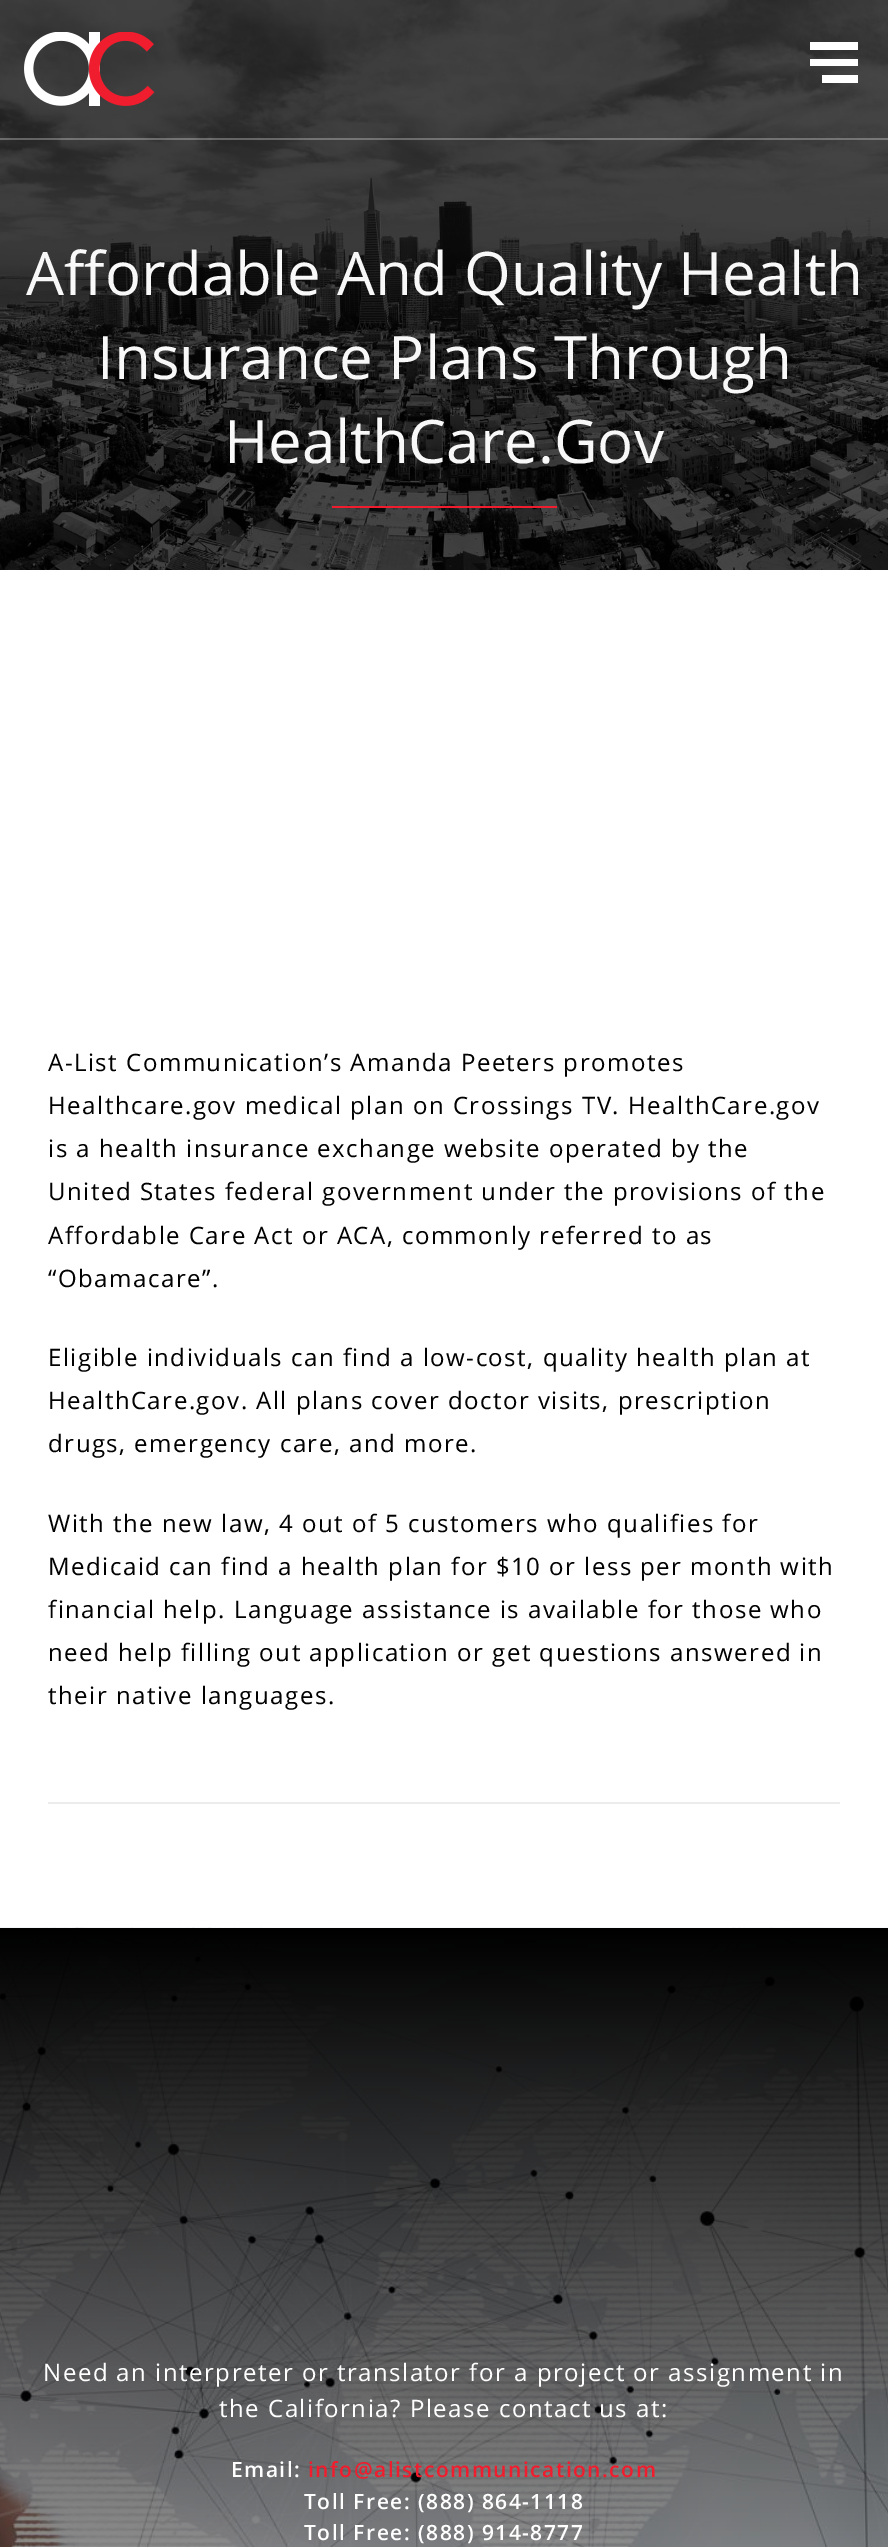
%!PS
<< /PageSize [888 2547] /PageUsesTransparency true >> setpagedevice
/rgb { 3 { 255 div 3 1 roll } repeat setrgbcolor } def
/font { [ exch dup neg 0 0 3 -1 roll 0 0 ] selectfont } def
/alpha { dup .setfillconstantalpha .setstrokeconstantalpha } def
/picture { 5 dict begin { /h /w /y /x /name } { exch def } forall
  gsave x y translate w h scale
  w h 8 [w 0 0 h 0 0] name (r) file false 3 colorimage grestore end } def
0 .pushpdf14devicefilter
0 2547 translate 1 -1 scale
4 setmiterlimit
255 255 255 rgb
0 0 888 2547 rectfill
(img/2.rgb) 0 0 888 570 picture
0.3 alpha
242 242 242 rgb
0 138 888 2 rectfill
1 alpha
(img/1.rgb) 24 32 131 74 picture
[
  [810 42 48 8 255 255 255]
  [810 59 48 7 255 255 255]
  [822 75 36 8 255 255 255]
  [332 506 225 2 239 29 45]
  [48 1802 792 2 236 236 236]
] { aload pop rgb rectfill } forall
(img/3.rgb) 0 1927 888 620 picture
/OpenSans-Regular 60 font
248 248 248 rgb
[
  [(Affordable And Quality Health) 26 295]
  [(Insurance Plans Through) 97 379]
  [(HealthCare.Gov) 224 463]
] { aload pop moveto show } forall
/OpenSans-Regular 24 font
0 0 0 rgb
48 1071 moveto 1.5 0 (A-List Communication’s Amanda Peeters promotes) ashow
48 1114 moveto 1.5 0 (Healthcare.gov medical plan on Crossings TV. HealthCare.gov) ashow
48 1157 moveto 1.5 0 (is a health insurance exchange website operated by the) ashow
48 1200 moveto 1.5 0 (United States federal government under the provisions of the) ashow
48 1244 moveto 1.5 0 (Affordable Care Act or ACA, commonly referred to as) ashow
48 1287 moveto 1.5 0 (“Obamacare”.) ashow
48 1366 moveto 1.5 0 (Eligible individuals can find a low-cost, quality health plan at) ashow
48 1409 moveto 1.5 0 (HealthCare.gov. All plans cover doctor visits, prescription) ashow
48 1452 moveto 1.5 0 (drugs, emergency care, and more.) ashow
48 1532 moveto 1.5 0 (With the new law, 4 out of 5 customers who qualifies for) ashow
48 1575 moveto 1.5 0 (Medicaid can find a health plan for $10 or less per month with) ashow
48 1618 moveto 1.5 0 (financial help. Language assistance is available for those who) ashow
48 1661 moveto 1.5 0 (need help filling out application or get questions answered in) ashow
48 1704 moveto 1.5 0 (their native languages.) ashow
255 255 255 rgb
43 2381 moveto 1.5 0 (Need an interpreter or translator for a project or assignment in) ashow
219 2417 moveto 1.5 0 (the California? Please contact us at:) ashow
/OpenSans-SemiBold 21 font
231 2477 moveto 1.5 0 (Email:) ashow
239 29 45 rgb
308 2477 moveto 1.5 0 (info@alistcommunication.com) ashow
255 255 255 rgb
304 2509 moveto 1.5 0 (Toll Free: \(888\) 864-1118) ashow
304 2540 moveto 1.5 0 (Toll Free: \(888\) 914-8777) ashow
.poppdf14devicefilter showpage
